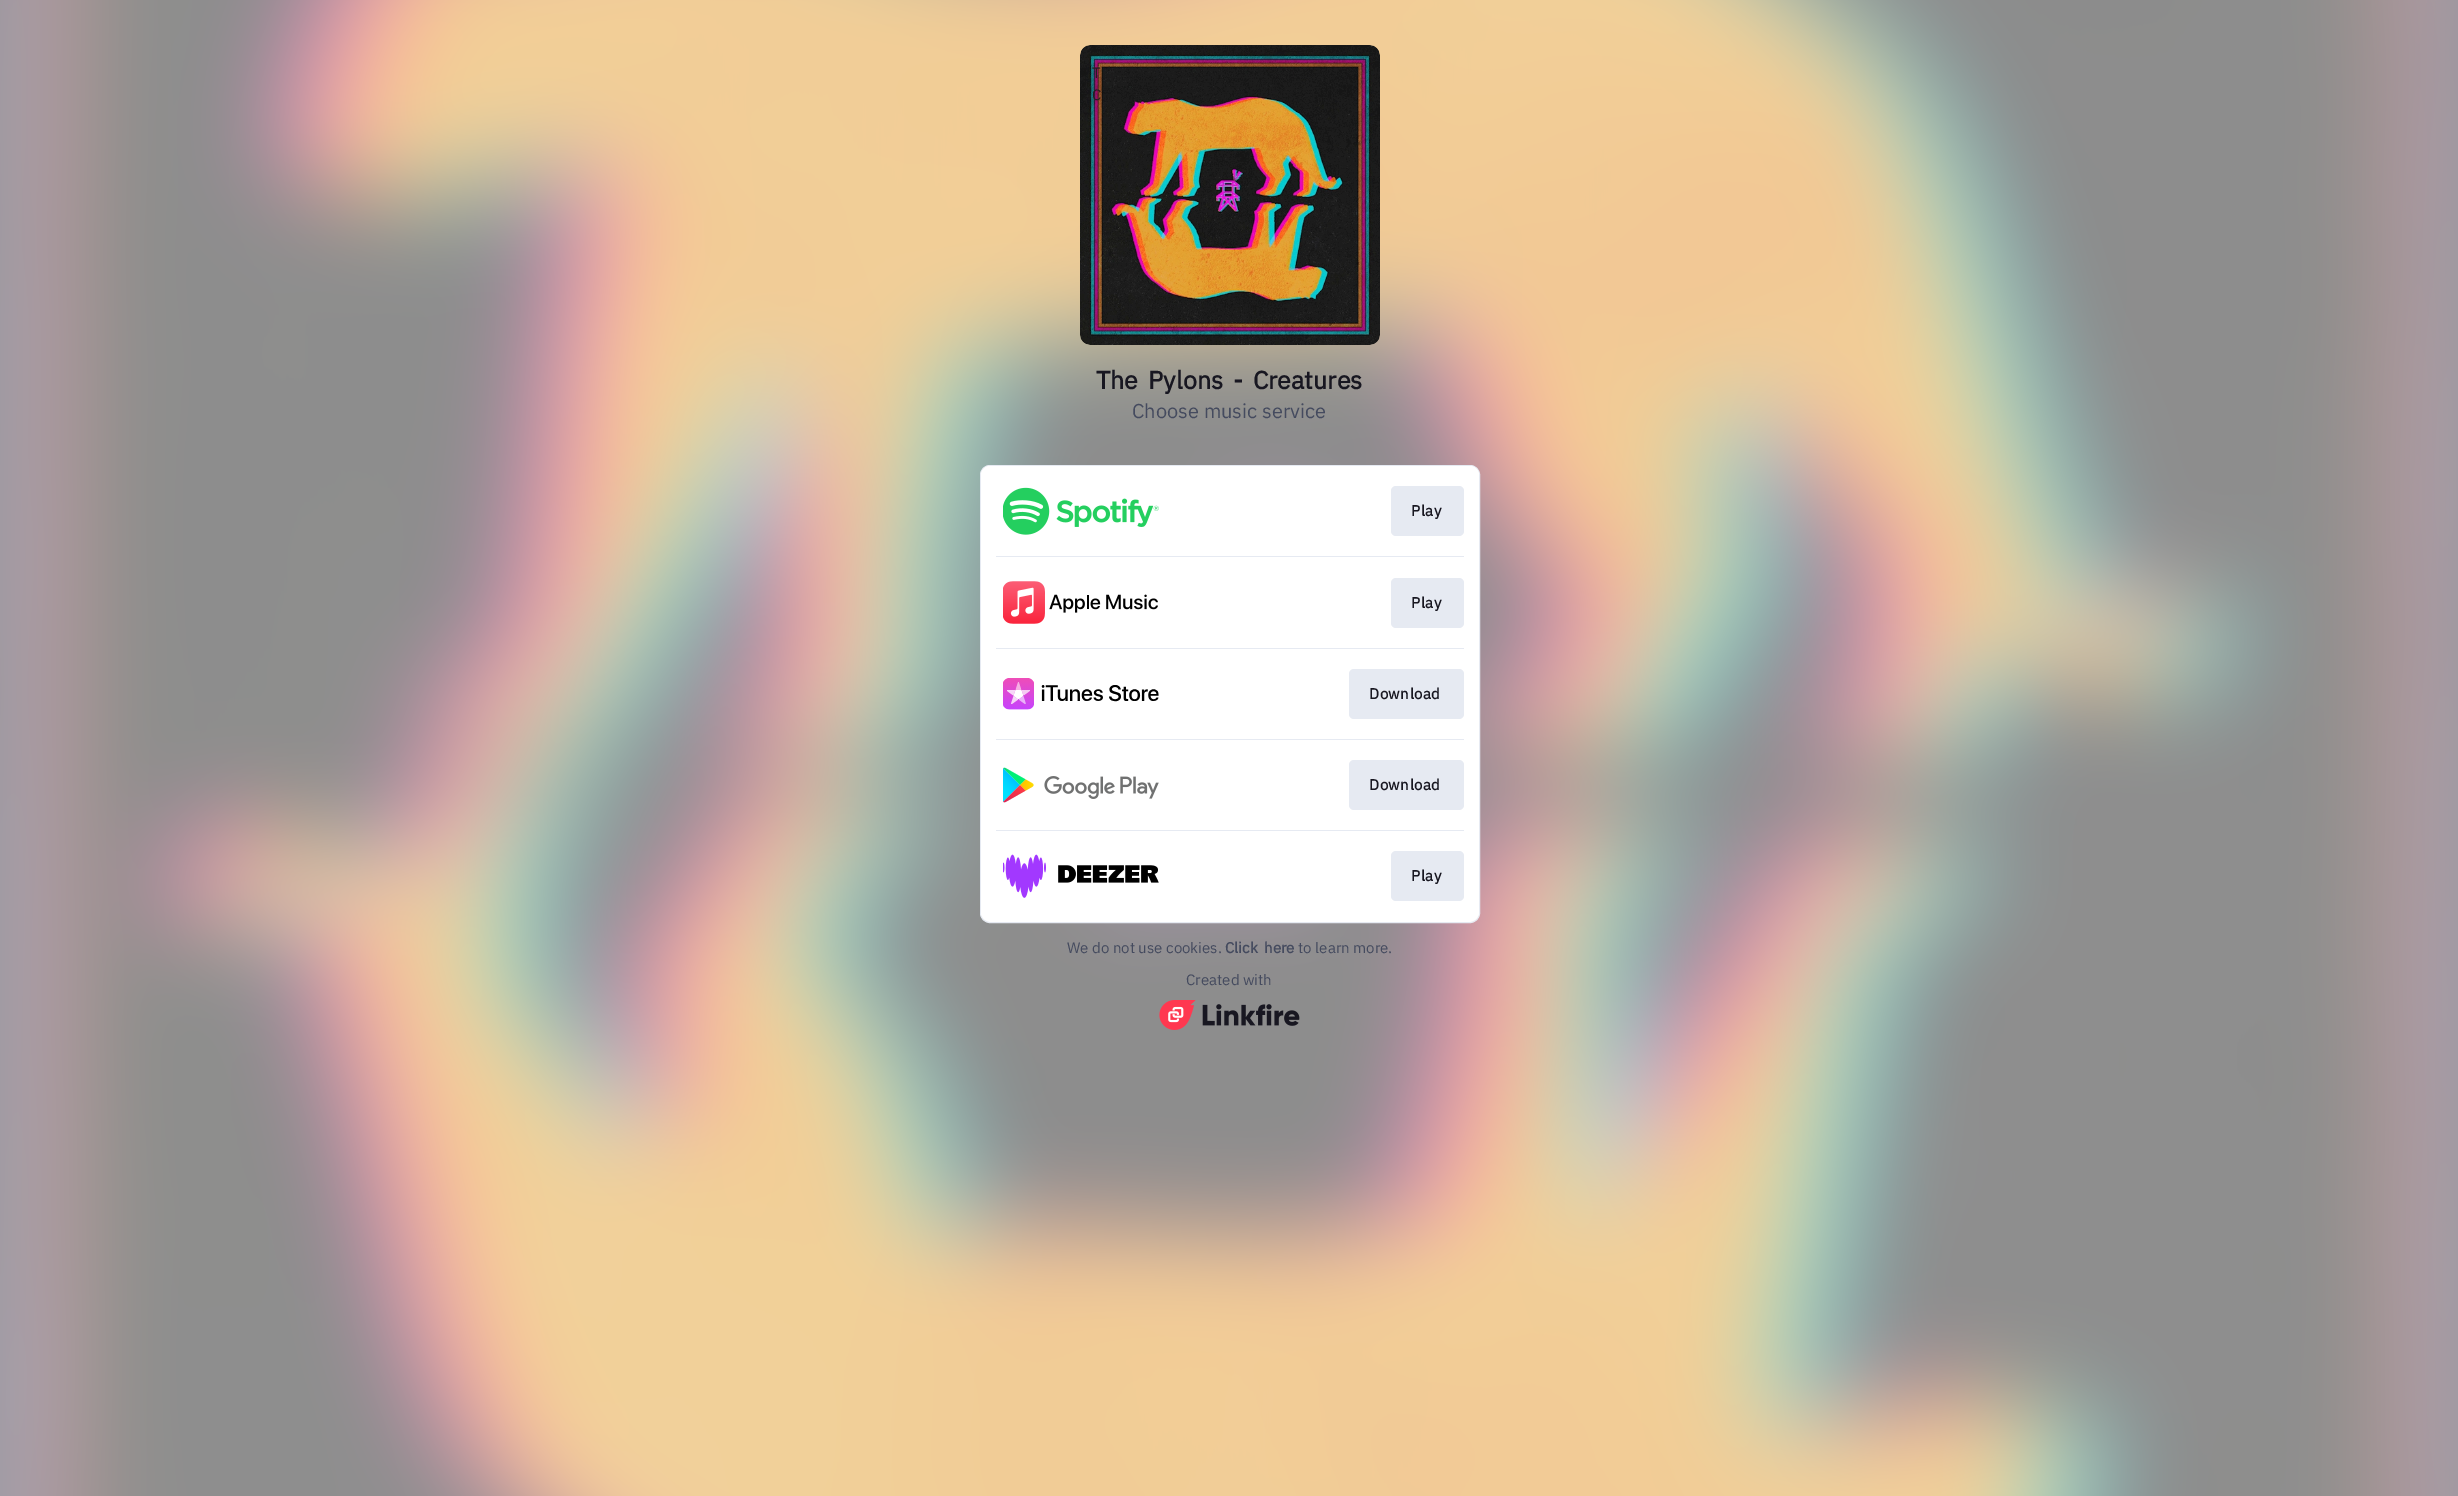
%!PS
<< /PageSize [2458 1496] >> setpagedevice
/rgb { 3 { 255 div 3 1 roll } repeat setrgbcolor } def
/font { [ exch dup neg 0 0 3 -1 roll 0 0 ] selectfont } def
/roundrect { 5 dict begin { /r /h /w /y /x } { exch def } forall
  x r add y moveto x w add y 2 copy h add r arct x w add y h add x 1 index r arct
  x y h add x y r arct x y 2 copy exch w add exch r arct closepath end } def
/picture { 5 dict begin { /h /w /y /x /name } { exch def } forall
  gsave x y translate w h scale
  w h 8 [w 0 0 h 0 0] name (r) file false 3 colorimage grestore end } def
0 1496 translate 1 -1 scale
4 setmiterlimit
255 255 255 rgb
0 0 2458 1496 rectfill
(img/1.rgb) 0 0 2458 1496 picture
(img/2.rgb) 1080 45 300 300 picture
980.5 465.5 499 457 9.5 roundrect gsave fill grestore
230 234 242 rgb
stroke
255 255 255 rgb
981 466 498 455 9 roundrect fill
(img/3.rgb) 1003 487 156 48 picture
230 234 242 rgb
1391 486 73 50 5 roundrect fill
996 556 468 1 rectfill
(img/4.rgb) 1003 581 155 43 picture
1391 578 73 50 5 roundrect fill
996 648 468 1 rectfill
(img/5.rgb) 1003 678 156 32 picture
1349 669 115 50 5 roundrect fill
996 739 468 1 rectfill
(img/6.rgb) 1003 767 156 36 picture
1349 760 115 50 5 roundrect fill
996 830 468 1 rectfill
(img/7.rgb) 1003 854 156 44 picture
1391 851 73 50 5 roundrect fill
(img/8.rgb) 1159 1000 141 30 picture
/IBMPlexSans-Regular 15 font
40 29 33 rgb
1092 78 moveto (T) show
gsave
1093 84 95 22 rectclip
1092 100 moveto (C) show
grestore
/IBMPlexSans-Bold 25 font
24 23 33 rgb
1096 389 moveto 4 0 32 (The Pylons - Creatures) widthshow
/IBMPlexSans-Regular 20 font
69 75 95 rgb
1132 418 moveto (Choose music service) show
/IBMPlexSans-Bold 15 font
24 23 33 rgb
1411 516 moveto 0.5 0 (Play) ashow
1411 608 moveto 0.5 0 (Play) ashow
1369 699 moveto 0.5 0 (Download) ashow
1369 790 moveto 0.5 0 (Download) ashow
1411 881 moveto 0.5 0 (Play) ashow
/IBMPlexSans-Regular 15 font
69 75 95 rgb
1067 953 moveto (We do not use cookies.) show
/IBMPlexSans-Bold 15 font
1225 953 moveto 3 0 32 (Click here) widthshow
/IBMPlexSans-Regular 15 font
1298 953 moveto (to learn more.) show
1186 985 moveto (Created with) show
showpage
